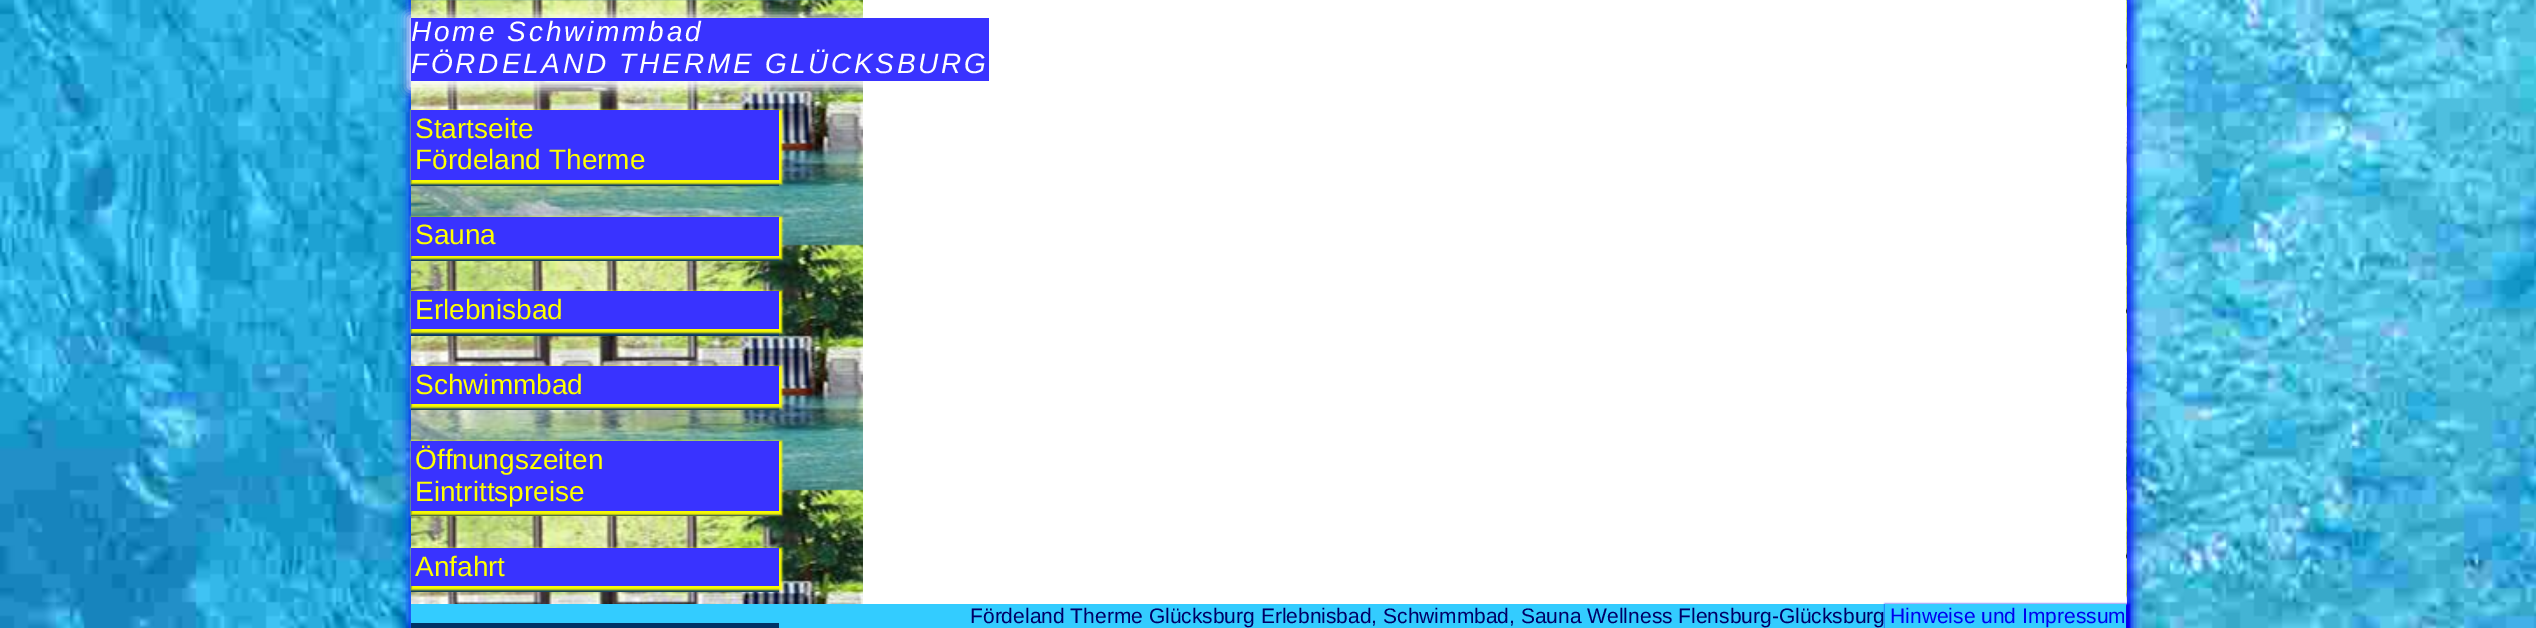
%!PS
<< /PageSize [2536 628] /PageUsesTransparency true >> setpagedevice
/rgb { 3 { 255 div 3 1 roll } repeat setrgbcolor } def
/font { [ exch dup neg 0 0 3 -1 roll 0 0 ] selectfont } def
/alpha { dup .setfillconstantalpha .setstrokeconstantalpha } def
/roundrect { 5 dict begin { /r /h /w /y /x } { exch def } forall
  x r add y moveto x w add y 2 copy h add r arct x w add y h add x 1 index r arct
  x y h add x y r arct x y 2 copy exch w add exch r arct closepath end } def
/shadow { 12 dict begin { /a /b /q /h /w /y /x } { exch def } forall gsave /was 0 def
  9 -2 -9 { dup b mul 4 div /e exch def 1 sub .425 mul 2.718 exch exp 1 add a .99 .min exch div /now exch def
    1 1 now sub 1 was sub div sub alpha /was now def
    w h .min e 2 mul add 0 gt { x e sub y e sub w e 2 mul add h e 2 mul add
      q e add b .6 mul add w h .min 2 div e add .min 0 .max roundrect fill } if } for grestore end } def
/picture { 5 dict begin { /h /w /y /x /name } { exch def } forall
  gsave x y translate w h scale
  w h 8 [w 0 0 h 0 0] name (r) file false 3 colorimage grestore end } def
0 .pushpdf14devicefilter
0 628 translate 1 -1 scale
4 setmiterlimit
255 255 255 rgb
0 0 2536 628 rectfill
(img/1.rgb) 0 0 2536 628 picture
0 0 255 rgb
410 -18 1722 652 0 6 1 shadow
(img/2.rgb) 411 0 1716 628 picture
255 255 255 rgb
863 0 1263 604 rectfill
408 16 588 73 0 6 1 shadow
57 51 255 rgb
411 18 578 63 rectfill
0 51 102 rgb
411 180 368 6 rectfill
255 255 0 rgb
411 110 371 74 0 1 1 shadow
57 51 255 rgb
411 110 368 70 rectfill
0 51 102 rgb
411 256 368 5 rectfill
255 255 0 rgb
411 217 371 42 0 1 1 shadow
57 51 255 rgb
411 217 368 39 rectfill
0 51 102 rgb
411 329 368 7 rectfill
255 255 0 rgb
411 291 371 42 0 1 1 shadow
57 51 255 rgb
411 291 368 38 rectfill
0 51 102 rgb
411 404 368 6 rectfill
255 255 0 rgb
411 366 371 42 0 1 1 shadow
57 51 255 rgb
411 366 368 38 rectfill
0 51 102 rgb
411 511 368 5 rectfill
255 255 0 rgb
411 441 371 74 0 1 1 shadow
57 51 255 rgb
411 441 368 70 rectfill
0 51 102 rgb
411 586 368 6 rectfill
255 255 0 rgb
411 548 371 42 0 1 1 shadow
[
  [411 548 368 38 57 51 255]
  [411 604 1715 24 51 204 255]
  [411 623 368 5 0 51 102]
] { aload pop rgb rectfill } forall
gsave
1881 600 moveto 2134 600 lineto 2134 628 lineto 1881 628 lineto closepath 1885 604 moveto 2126 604 lineto 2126 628 lineto 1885 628 lineto closepath eoclip newpath
0 0 238 rgb
1885 604 245 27 0 1 1 shadow
grestore
/LiberationSans-Italic 28 font
255 255 255 rgb
411 41 moveto 2.8 0 (Home Schwimmbad) ashow
411 73 moveto 2.8 0 (FÖRDELAND THERME GLÜCKSBURG) ashow
/LiberationSans-Regular 28 font
255 255 0 rgb
[
  [(Startseite) 415 138]
  [(Fördeland Therme) 415 169]
  [(Sauna) 415 244]
  [(Erlebnisbad) 415 319]
  [(Schwimmbad) 415 394]
  [(Öffnungszeiten) 415 469]
  [(Eintrittspreise) 415 501]
  [(Anfahrt) 415 576]
] { aload pop moveto show } forall
/LiberationSans-Regular 21 font
0 0 102 rgb
970 623 moveto (Fördeland Therme Glücksburg Erlebnisbad, Schwimmbad, Sauna Wellness Flensburg-Glücksburg) show
0 0 238 rgb
1890 623 moveto (Hinweise und Impressum) show
.poppdf14devicefilter showpage
